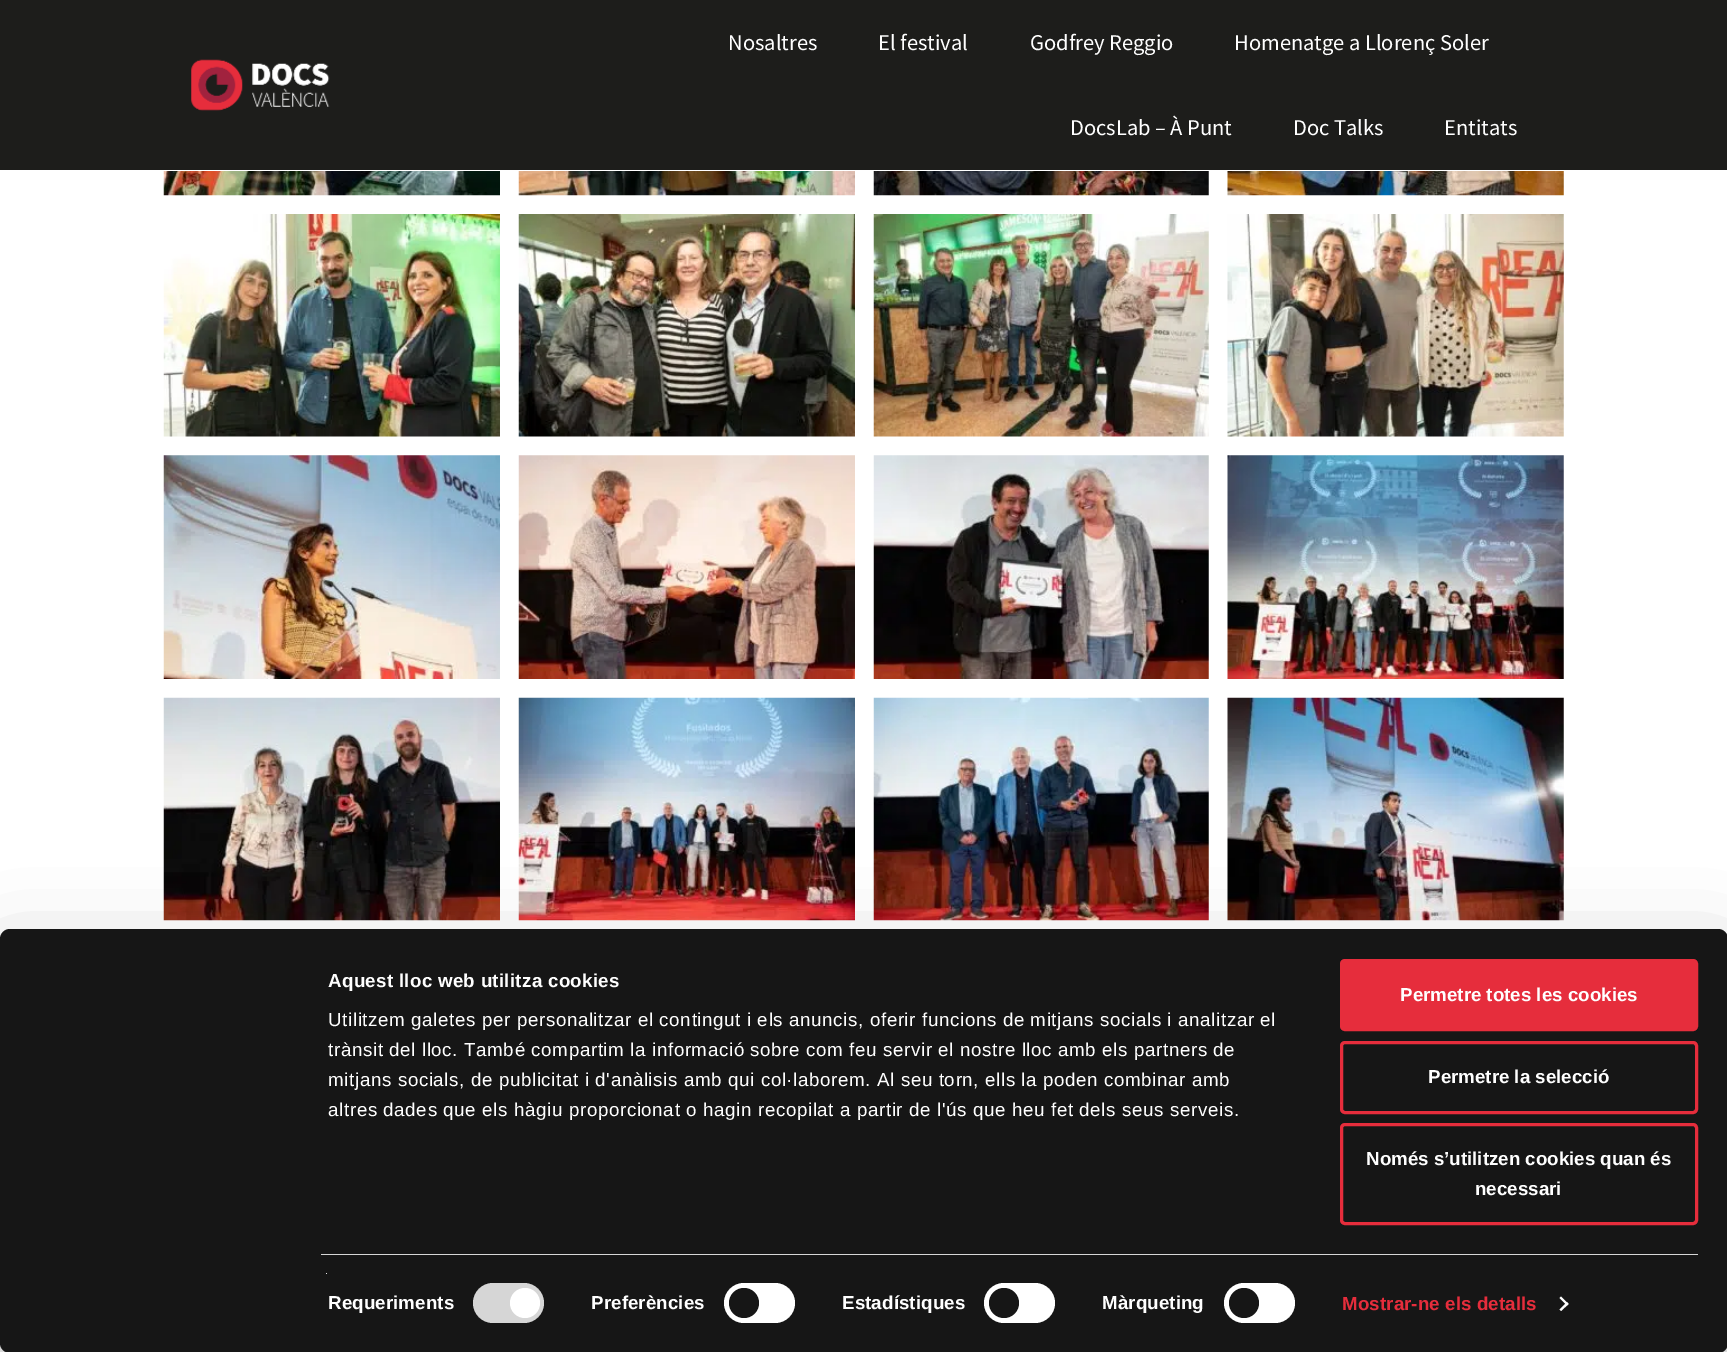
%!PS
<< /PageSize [1727 1352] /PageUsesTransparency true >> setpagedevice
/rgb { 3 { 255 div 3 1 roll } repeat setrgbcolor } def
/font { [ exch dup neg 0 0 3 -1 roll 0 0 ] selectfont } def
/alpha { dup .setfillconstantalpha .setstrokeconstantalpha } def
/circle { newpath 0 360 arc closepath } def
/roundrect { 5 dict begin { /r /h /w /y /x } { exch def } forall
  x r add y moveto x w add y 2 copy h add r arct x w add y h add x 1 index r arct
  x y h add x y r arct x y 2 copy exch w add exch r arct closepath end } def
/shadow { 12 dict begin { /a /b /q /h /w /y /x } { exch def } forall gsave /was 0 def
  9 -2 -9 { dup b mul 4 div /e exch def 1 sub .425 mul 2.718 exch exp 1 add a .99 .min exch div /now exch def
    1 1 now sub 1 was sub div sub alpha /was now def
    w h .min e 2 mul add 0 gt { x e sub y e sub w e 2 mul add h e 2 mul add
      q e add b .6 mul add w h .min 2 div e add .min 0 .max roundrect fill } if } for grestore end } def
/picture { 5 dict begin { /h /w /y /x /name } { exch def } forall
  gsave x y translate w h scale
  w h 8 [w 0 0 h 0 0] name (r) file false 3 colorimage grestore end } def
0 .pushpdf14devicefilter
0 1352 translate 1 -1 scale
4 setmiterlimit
255 255 255 rgb
0 0 1727 1352 rectfill
29 29 27 rgb
0 0 1727 170 rectfill
(img/1.rgb) 191 59 139 52 picture
(img/2.rgb) 163 171 337 25 picture
(img/3.rgb) 518 171 337 25 picture
(img/4.rgb) 873 171 336 25 picture
(img/5.rgb) 1227 171 337 25 picture
(img/6.rgb) 163 214 337 223 picture
(img/7.rgb) 518 214 337 223 picture
(img/8.rgb) 873 214 336 223 picture
(img/9.rgb) 1227 214 337 223 picture
(img/10.rgb) 163 455 337 224 picture
(img/11.rgb) 518 455 337 224 picture
(img/12.rgb) 873 455 336 224 picture
(img/13.rgb) 1227 455 337 224 picture
(img/14.rgb) 163 697 337 224 picture
(img/15.rgb) 518 697 337 224 picture
(img/16.rgb) 873 697 336 224 picture
(img/17.rgb) 1227 697 337 224 picture
0 0 0 rgb
0 966 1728 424 10 44 0.3 shadow
22 22 22 rgb
0 929 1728 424 10 roundrect fill
214 214 214 rgb
321 1254 1377 1 rectfill
229 229 229 rgb
326 1273 1 1 rectfill
214 214 214 rgb
473 1283 71 40 20 roundrect fill
255 255 255 rgb
525 1303 15 circle fill
724 1283 71 40 20 roundrect fill
22 22 22 rgb
744 1303 15 circle fill
255 255 255 rgb
984 1283 71 40 20 roundrect fill
22 22 22 rgb
1004 1303 15 circle fill
255 255 255 rgb
1224 1283 71 40 20 roundrect fill
22 22 22 rgb
1244 1303 15 circle fill
255 255 255 rgb
1561 1296.5 moveto 1568.5 1304 lineto 1567 1305.5 lineto 1559.5 1298 lineto closepath fill
1567 1302 moveto 1568.5 1304 lineto 1561 1311 lineto 1559.5 1309.5 lineto closepath fill
230 45 60 rgb
1341.5 960.5 355 69 3.5 roundrect gsave fill grestore
3 setlinewidth
stroke
1341.5 1042.5 355 70 3.5 roundrect stroke
1341.5 1124.5 355 99 3.5 roundrect stroke
/SourceSansPro-Regular 22.5 font
255 255 255 rgb
[
  [(Nosaltres) 728 50]
  [(El festival) 878 50]
  [(Godfrey Reggio) 1030 50]
  [(Homenatge a Llorenç Soler) 1234 50]
  [(DocsLab – À Punt) 1070 135]
  [(Doc Talks) 1293 135]
  [(Entitats) 1444 135]
] { aload pop moveto show } forall
/LiberationSans-Bold 18.75 font
328 987 moveto 0.3 0 (Aquest lloc web utilitza cookies) ashow
/LiberationSans-Regular 18.75 font
328 1026 moveto 0.62 0 (Utilitzem galetes per personalitzar el contingut i els anuncis, oferir funcions de mitjans socials i analitzar el) ashow
328 1056 moveto 0.62 0 (trànsit del lloc. També compartim la informació sobre com feu servir el nostre lloc amb els partners de) ashow
328 1086 moveto 0.62 0 (mitjans socials, de publicitat i d'anàlisis amb qui col·laborem. Al seu torn, ells la poden combinar amb) ashow
328 1116 moveto 0.62 0 (altres dades que els hàgiu proporcionat o hagin recopilat a partir de l'ús que heu fet dels seus serveis.) ashow
/LiberationSans-Bold 18.75 font
328 1309 moveto 0.1 0 (Requeriments) ashow
591 1309 moveto 0.1 0 (Preferències) ashow
842 1309 moveto 0.1 0 (Estadístiques) ashow
1102 1309 moveto 0.1 0 (Màrqueting) ashow
230 45 60 rgb
1342 1310 moveto 0.1 0 (Mostrar-ne els detalls) ashow
255 255 255 rgb
[
  [(Permetre totes les cookies) 1400 1001]
  [(Permetre la selecció) 1428 1083]
  [(Només s’utilitzen cookies quan és) 1366 1165]
  [(necessari) 1475 1195]
] { aload pop moveto show } forall
.poppdf14devicefilter showpage
